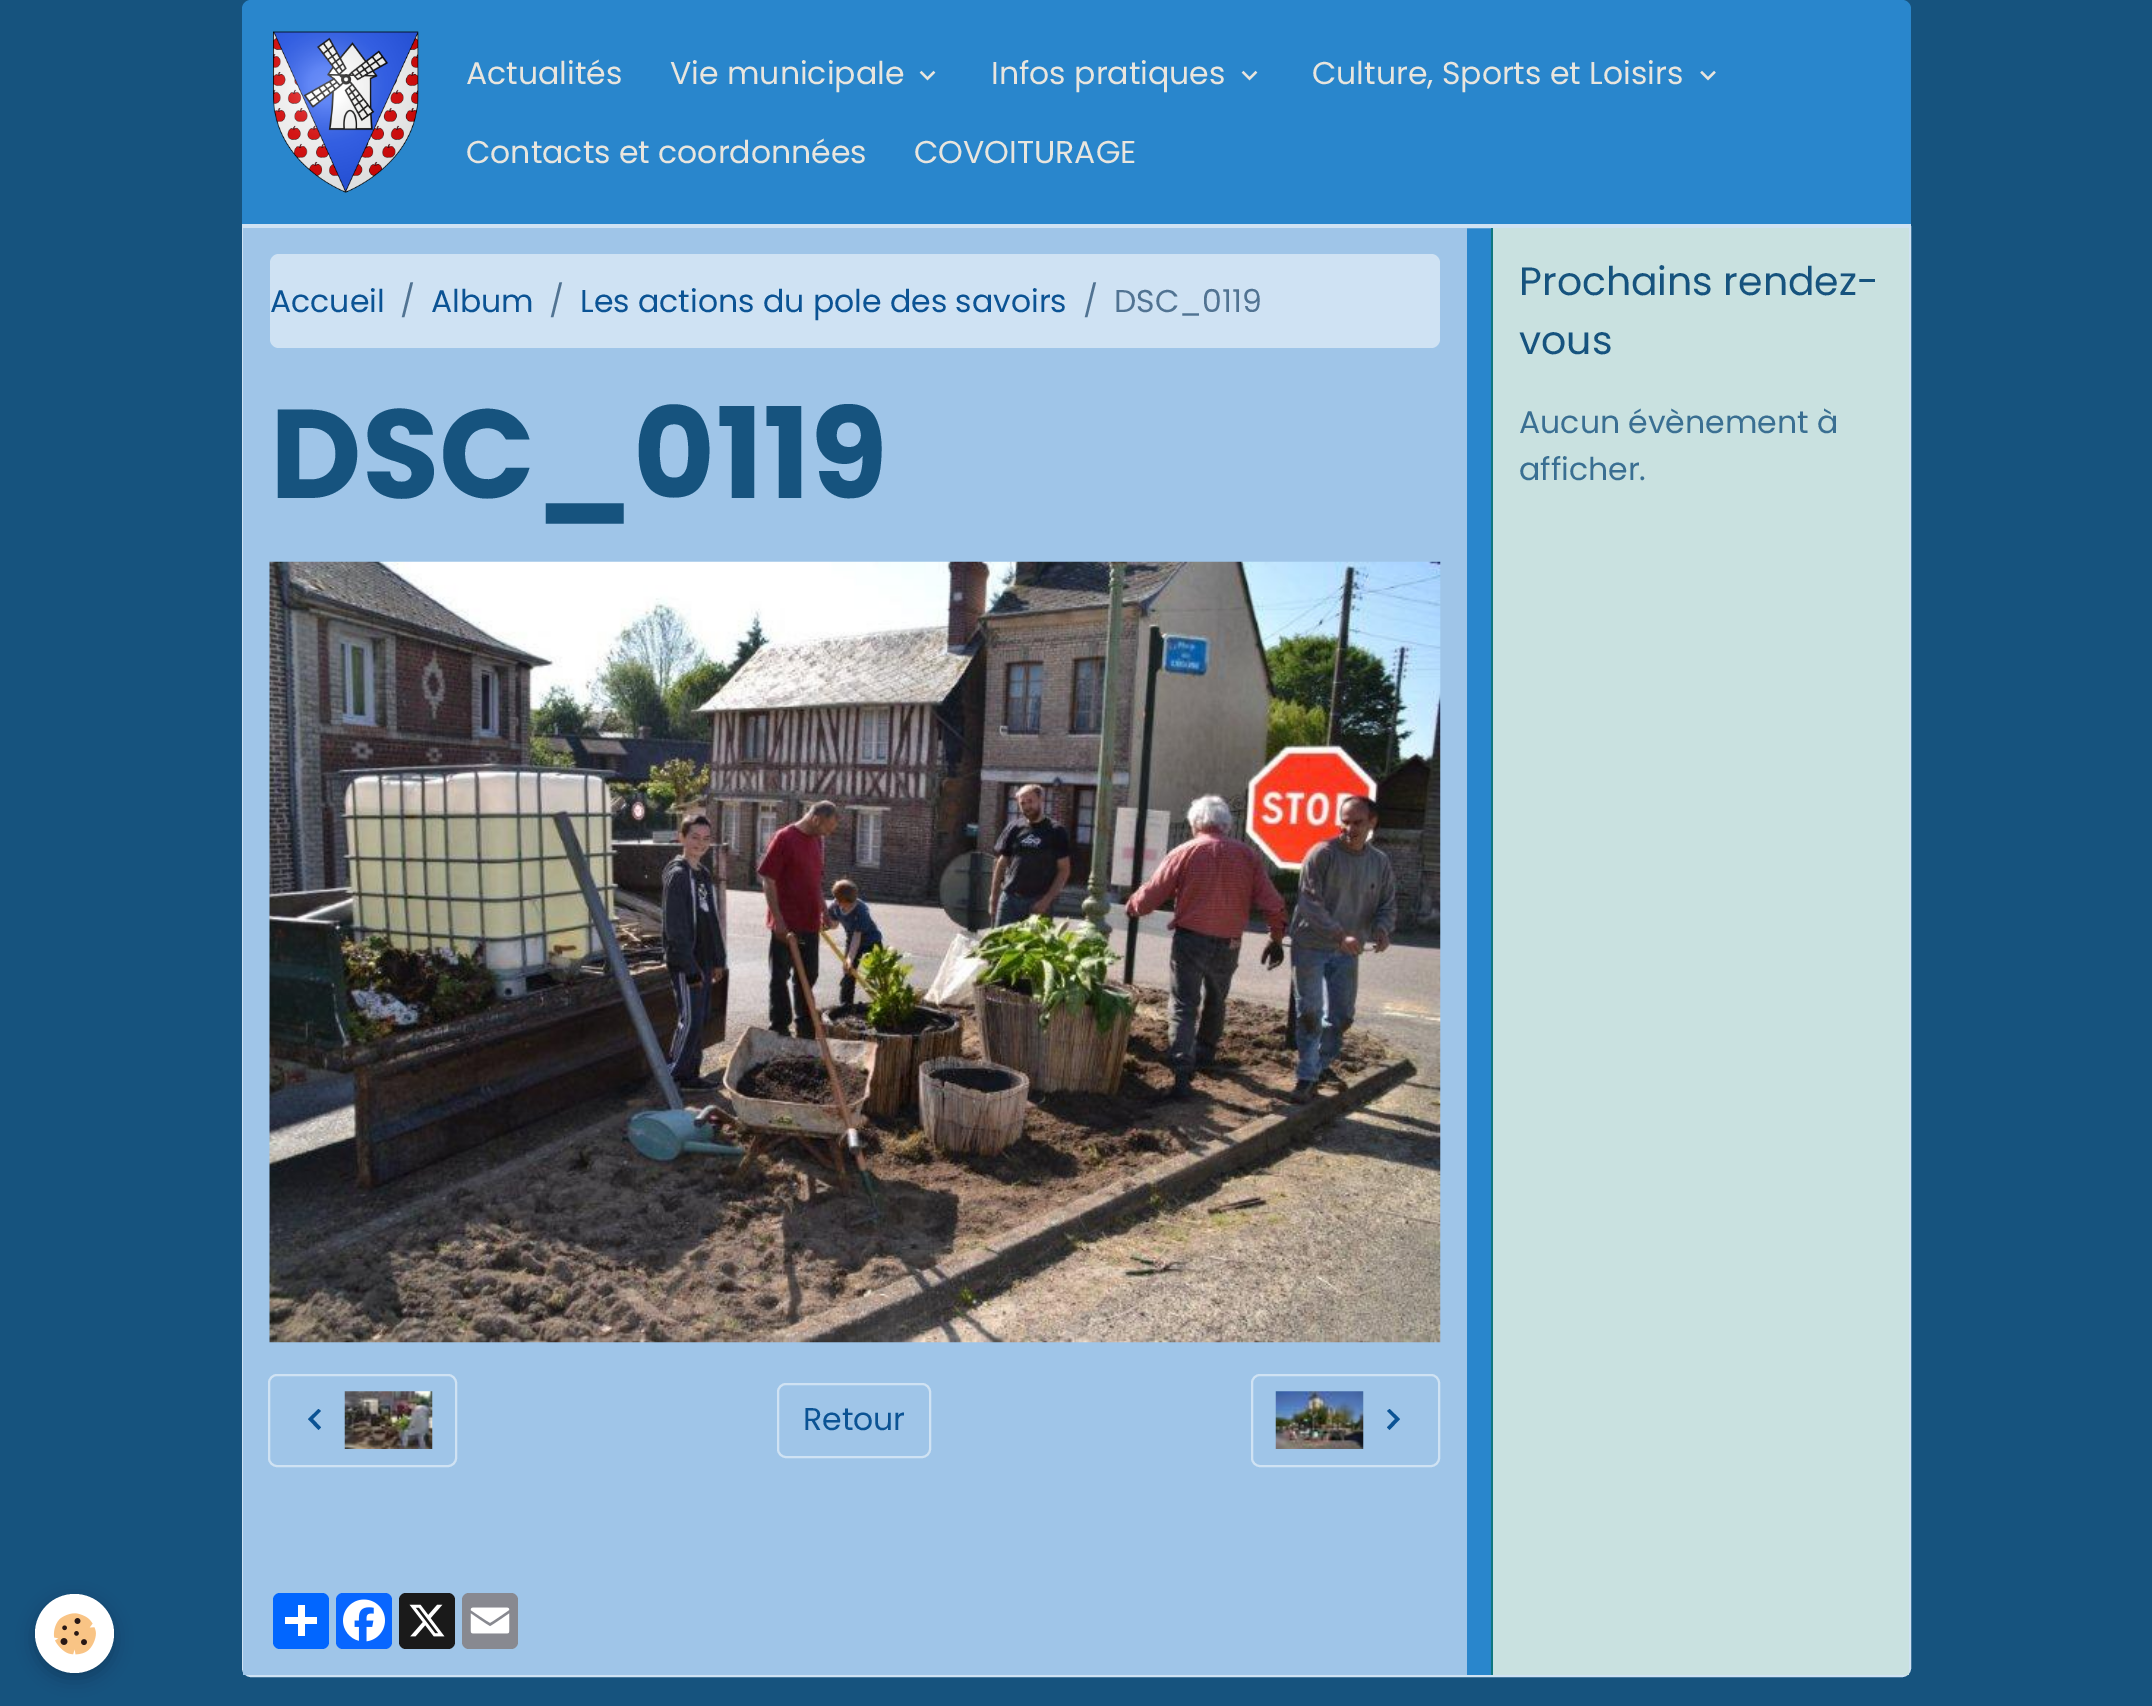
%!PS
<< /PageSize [2152 1706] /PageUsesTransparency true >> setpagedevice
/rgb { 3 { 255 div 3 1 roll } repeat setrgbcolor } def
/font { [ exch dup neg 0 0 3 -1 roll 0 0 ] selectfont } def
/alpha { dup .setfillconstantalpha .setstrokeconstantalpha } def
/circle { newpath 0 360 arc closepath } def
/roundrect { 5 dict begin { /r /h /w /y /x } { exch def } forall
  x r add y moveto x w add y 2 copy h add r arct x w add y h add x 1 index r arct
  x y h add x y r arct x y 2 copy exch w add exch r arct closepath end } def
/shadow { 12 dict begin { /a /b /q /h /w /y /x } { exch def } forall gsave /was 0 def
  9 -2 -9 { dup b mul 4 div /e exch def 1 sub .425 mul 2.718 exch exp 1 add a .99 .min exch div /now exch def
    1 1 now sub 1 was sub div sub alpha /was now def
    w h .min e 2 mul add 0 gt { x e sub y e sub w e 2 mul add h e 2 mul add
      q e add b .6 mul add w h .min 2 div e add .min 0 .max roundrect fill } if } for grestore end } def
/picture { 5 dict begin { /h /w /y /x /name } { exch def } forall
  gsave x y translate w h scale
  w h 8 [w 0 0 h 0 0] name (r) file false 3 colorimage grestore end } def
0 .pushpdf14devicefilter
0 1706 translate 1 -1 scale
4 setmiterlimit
22 83 126 rgb
0 0 2152 1706 rectfill
41 134 204 rgb
251 0 moveto 1902 0 lineto 1907 0 1911 4 1911 9 curveto 1911 226 lineto 242 226 lineto 242 9 lineto 242 4 246 0 251 0 curveto closepath fill
207 226 243 rgb
242 224 1669 2 rectfill
(img/1.rgb) 273 31 146 162 picture
(img/2.rgb) 919 70 17 11 picture
(img/2.rgb) 1241 70 17 11 picture
(img/3.rgb) 1700 70 16 11 picture
41 134 204 rgb
243 227 moveto 1910 227 lineto 1910 1668 lineto 1910 1672.5 1906.5 1676 1902 1676 curveto 251 1676 lineto 246.5 1676 243 1672.5 243 1668 curveto closepath gsave fill grestore
207 226 243 rgb
2 setlinewidth
stroke
159 197 232 rgb
243 228 1224 1447 rectfill
207 226 243 rgb
270 254 1170 94 9 roundrect fill
15 120 127 rgb
1491 228 2 1447 rectfill
(img/4.rgb) 269 561 1172 782 picture
207 226 243 rgb
269 1375 187 91 8 roundrect stroke
11 83 148 rgb
321 1411 moveto 313 1419 lineto 321 1427.5 lineto 318.5 1430 lineto 308 1419 lineto 318.5 1409 lineto closepath fill
(img/5.rgb) 344 1391 89 58 picture
207 226 243 rgb
778 1384 152 73 8 roundrect stroke
1252 1375 187 91 8 roundrect stroke
(img/6.rgb) 1275 1391 89 58 picture
11 83 148 rgb
1389.5 1409 moveto 1400 1419 lineto 1389.5 1430 lineto 1387 1427.5 lineto 1395 1419 lineto 1387 1411 lineto closepath fill
1 102 255 rgb
273 1593 56 56 7 roundrect fill
255 255 255 rgb
298 1605 7 31 rectfill
285 1617 32 7 rectfill
8 102 255 rgb
336 1593 56 56 7 roundrect fill
(img/7.rgb) 343 1599 42 43 picture
26 26 26 rgb
399 1593 56 56 7 roundrect fill
(img/8.rgb) 409 1604 36 33 picture
136 137 144 rgb
462 1593 56 56 7 roundrect fill
(img/9.rgb) 470 1607 40 27 picture
201 225 224 rgb
1493 228 416 1447 rectfill
0 0 0 rgb
35 1600 79 78 39 9 0.24 shadow
255 255 255 rgb
74.5 1633.5 39.5 circle fill
(img/10.rgb) 53 1613 43 42 picture
/Poppins-Regular 31.5 font
232 229 222 rgb
[
  [(Actualités) 466 84]
  [(Vie municipale) 670 84]
  [(Infos pratiques) 991 84]
  [(Culture, Sports et Loisirs) 1312 84]
  [(Contacts et coordonnées) 466 163]
  [(COVOITURAGE) 914 163]
] { aload pop moveto show } forall
11 83 148 rgb
270 312 moveto (Accueil) show
81 115 146 rgb
400 312 moveto (/) show
11 83 148 rgb
431 312 moveto (Album) show
81 115 146 rgb
549 312 moveto (/) show
11 83 148 rgb
580 312 moveto (Les actions du pole des savoirs) show
81 115 146 rgb
1083 312 moveto (/) show
1114 312 moveto (DSC_0119) show
/Poppins-Bold 126 font
22 83 126 rgb
270 498 moveto (DSC_0119) show
/Poppins-Regular 31.5 font
11 83 148 rgb
803 1430 moveto (Retour) show
/Poppins-Regular 39.4 font
22 83 126 rgb
1519 295 moveto (Prochains rendez-) show
1519 354 moveto (vous) show
/Poppins-Regular 31.5 font
58 111 146 rgb
1519 433 moveto (Aucun évènement à) show
1519 480 moveto (afficher.) show
.poppdf14devicefilter showpage
